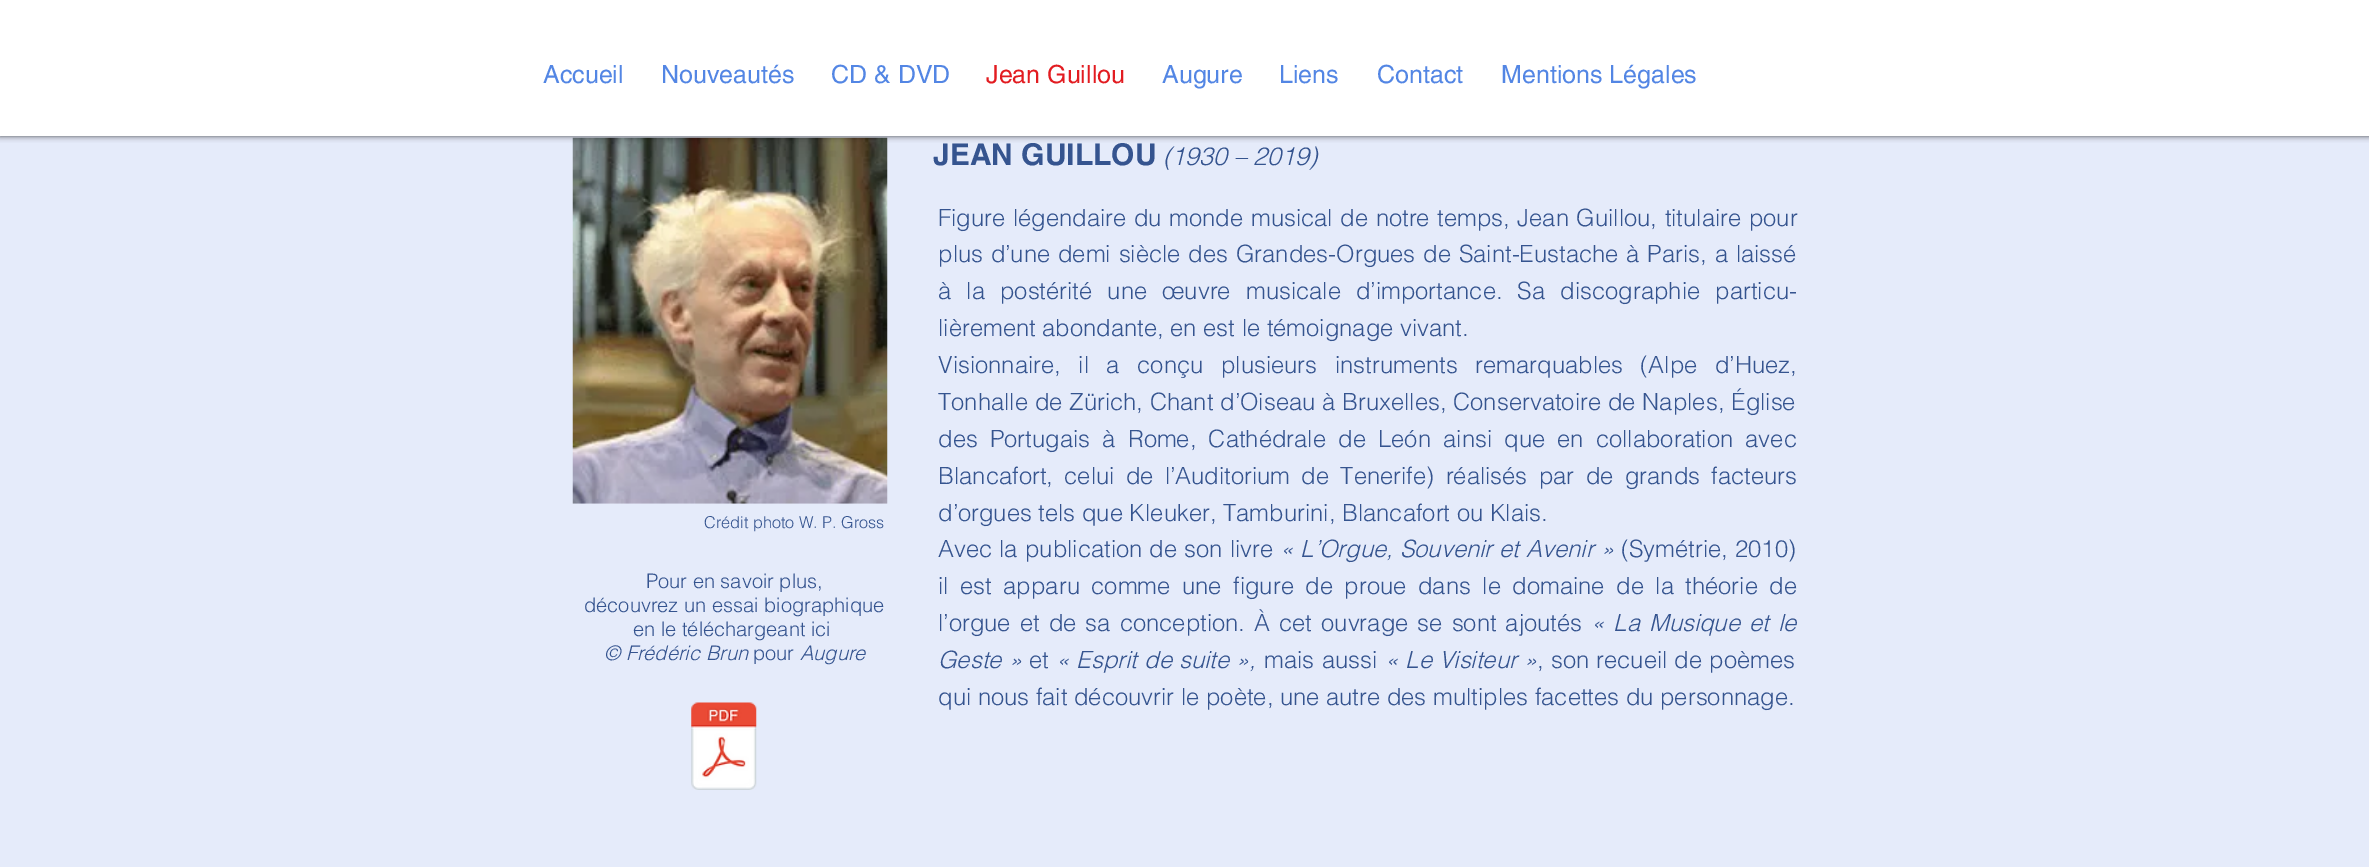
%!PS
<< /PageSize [2369 867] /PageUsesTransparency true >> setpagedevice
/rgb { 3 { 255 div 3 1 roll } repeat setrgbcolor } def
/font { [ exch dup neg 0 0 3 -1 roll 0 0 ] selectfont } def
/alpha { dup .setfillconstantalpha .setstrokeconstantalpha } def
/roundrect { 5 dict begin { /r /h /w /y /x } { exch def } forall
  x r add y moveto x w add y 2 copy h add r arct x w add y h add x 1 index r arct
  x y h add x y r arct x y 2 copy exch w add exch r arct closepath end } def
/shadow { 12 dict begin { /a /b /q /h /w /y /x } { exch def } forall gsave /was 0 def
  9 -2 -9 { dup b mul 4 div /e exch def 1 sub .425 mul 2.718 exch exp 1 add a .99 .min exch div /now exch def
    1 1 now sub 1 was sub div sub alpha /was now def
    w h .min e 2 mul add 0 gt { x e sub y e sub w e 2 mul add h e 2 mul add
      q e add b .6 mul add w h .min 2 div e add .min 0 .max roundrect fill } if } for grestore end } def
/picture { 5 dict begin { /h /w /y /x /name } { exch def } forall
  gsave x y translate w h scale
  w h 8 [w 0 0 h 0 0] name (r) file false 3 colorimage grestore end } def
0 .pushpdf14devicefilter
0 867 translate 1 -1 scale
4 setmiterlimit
229 235 250 rgb
0 0 2369 867 rectfill
(img/1.rgb) 572 137 316 367 picture
0 0 0 rgb
0 0 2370 136 0 3 0.7 shadow
255 255 255 rgb
0 0 2369 136 rectfill
(img/2.rgb) 691 702 66 88 picture
/helvetica-Regular 25 font
83 134 228 rgb
[
  [(Accueil) 543 83]
  [(Nouveautés) 661 83]
  [(CD & DVD) 831 83]
] { aload pop moveto show } forall
226 28 33 rgb
986 83 moveto (Jean Guillou) show
83 134 228 rgb
[
  [(Augure) 1162 83]
  [(Liens) 1279 83]
  [(Contact) 1377 83]
  [(Mentions Légales) 1501 83]
] { aload pop moveto show } forall
/helvetica-Bold 30 font
53 84 143 rgb
933 165 moveto (JEAN GUILLOU) show
/helvetica-LightItalic 25 font
1163 165 moveto (\(1930 – 2019\)) show
/helvetica-Light 16.25 font
704 528 moveto (Crédit photo W. P. Gross) show
/helvetica-Light 23.75 font
938 226 moveto 1 0 32 (Figure légendaire du monde musical de notre temps, Jean Guillou, titulaire pour) widthshow
938 262 moveto 1.25 0 32 (plus d’une demi siècle des Grandes-Orgues de Saint-Eustache à Paris, a laissé) widthshow
938 299 moveto 8.5 0 32 (à la postérité une œuvre musicale d’importance. Sa discographie particu-) widthshow
938 336 moveto (lièrement abondante, en est le témoignage vivant.) show
938 373 moveto 11 0 32 (Visionnaire, il a conçu plusieurs instruments remarquables \(Alpe d’Huez,) widthshow
938 410 moveto 0.25 0 32 (Tonhalle de Zürich, Chant d’Oiseau à Bruxelles, Conservatoire de Naples, Église) widthshow
938 447 moveto 5.6 0 32 (des Portugais à Rome, Cathédrale de León ainsi que en collaboration avec) widthshow
938 484 moveto 4.75 0 32 (Blancafort, celui de l’Auditorium de Tenerife\) réalisés par de grands facteurs) widthshow
938 521 moveto (d’orgues tels que Kleuker, Tamburini, Blancafort ou Klais.) show
938 557 moveto 0.5 0 32 (Avec la publication de son livre) widthshow
/helvetica-LightItalic 23.75 font
1280 557 moveto 0.5 0 32 (« L’Orgue, Souvenir et Avenir ») widthshow
/helvetica-Light 23.75 font
1621 557 moveto 0.5 0 32 (\(Symétrie, 2010\)) widthshow
938 594 moveto 4.9 0 32 (il est apparu comme une figure de proue dans le domaine de la théorie de) widthshow
938 631 moveto 2.5 0 32 (l’orgue et de sa conception. À cet ouvrage se sont ajoutés) widthshow
/helvetica-LightItalic 23.75 font
1591 631 moveto 2.5 0 32 (« La Musique et le) widthshow
938 668 moveto 1 0 32 (Geste ») widthshow
/helvetica-Light 23.75 font
1029 668 moveto (et) show
/helvetica-LightItalic 23.75 font
1056 668 moveto 0.5 0 32 (« Esprit de suite »,) widthshow
/helvetica-Light 23.75 font
1264 668 moveto 1 0 32 (mais aussi) widthshow
/helvetica-LightItalic 23.75 font
1385 668 moveto 0.5 0 32 (« Le Visiteur ») widthshow
/helvetica-Light 23.75 font
1537 668 moveto 0.5 0 32 (, son recueil de poèmes) widthshow
938 705 moveto (qui nous fait découvrir le poète, une autre des multiples facettes du personnage.) show
/helvetica-Light 20 font
[
  [(Pour en savoir plus,) 646 588]
  [(découvrez un essai biographique) 584 612]
  [(en le téléchargeant ici) 633 636]
] { aload pop moveto show } forall
/helvetica-LightItalic 20 font
604 660 moveto (© Frédéric Brun) show
/helvetica-Light 20 font
753 660 moveto (pour) show
/helvetica-LightItalic 20 font
800 660 moveto (Augure) show
.poppdf14devicefilter showpage
